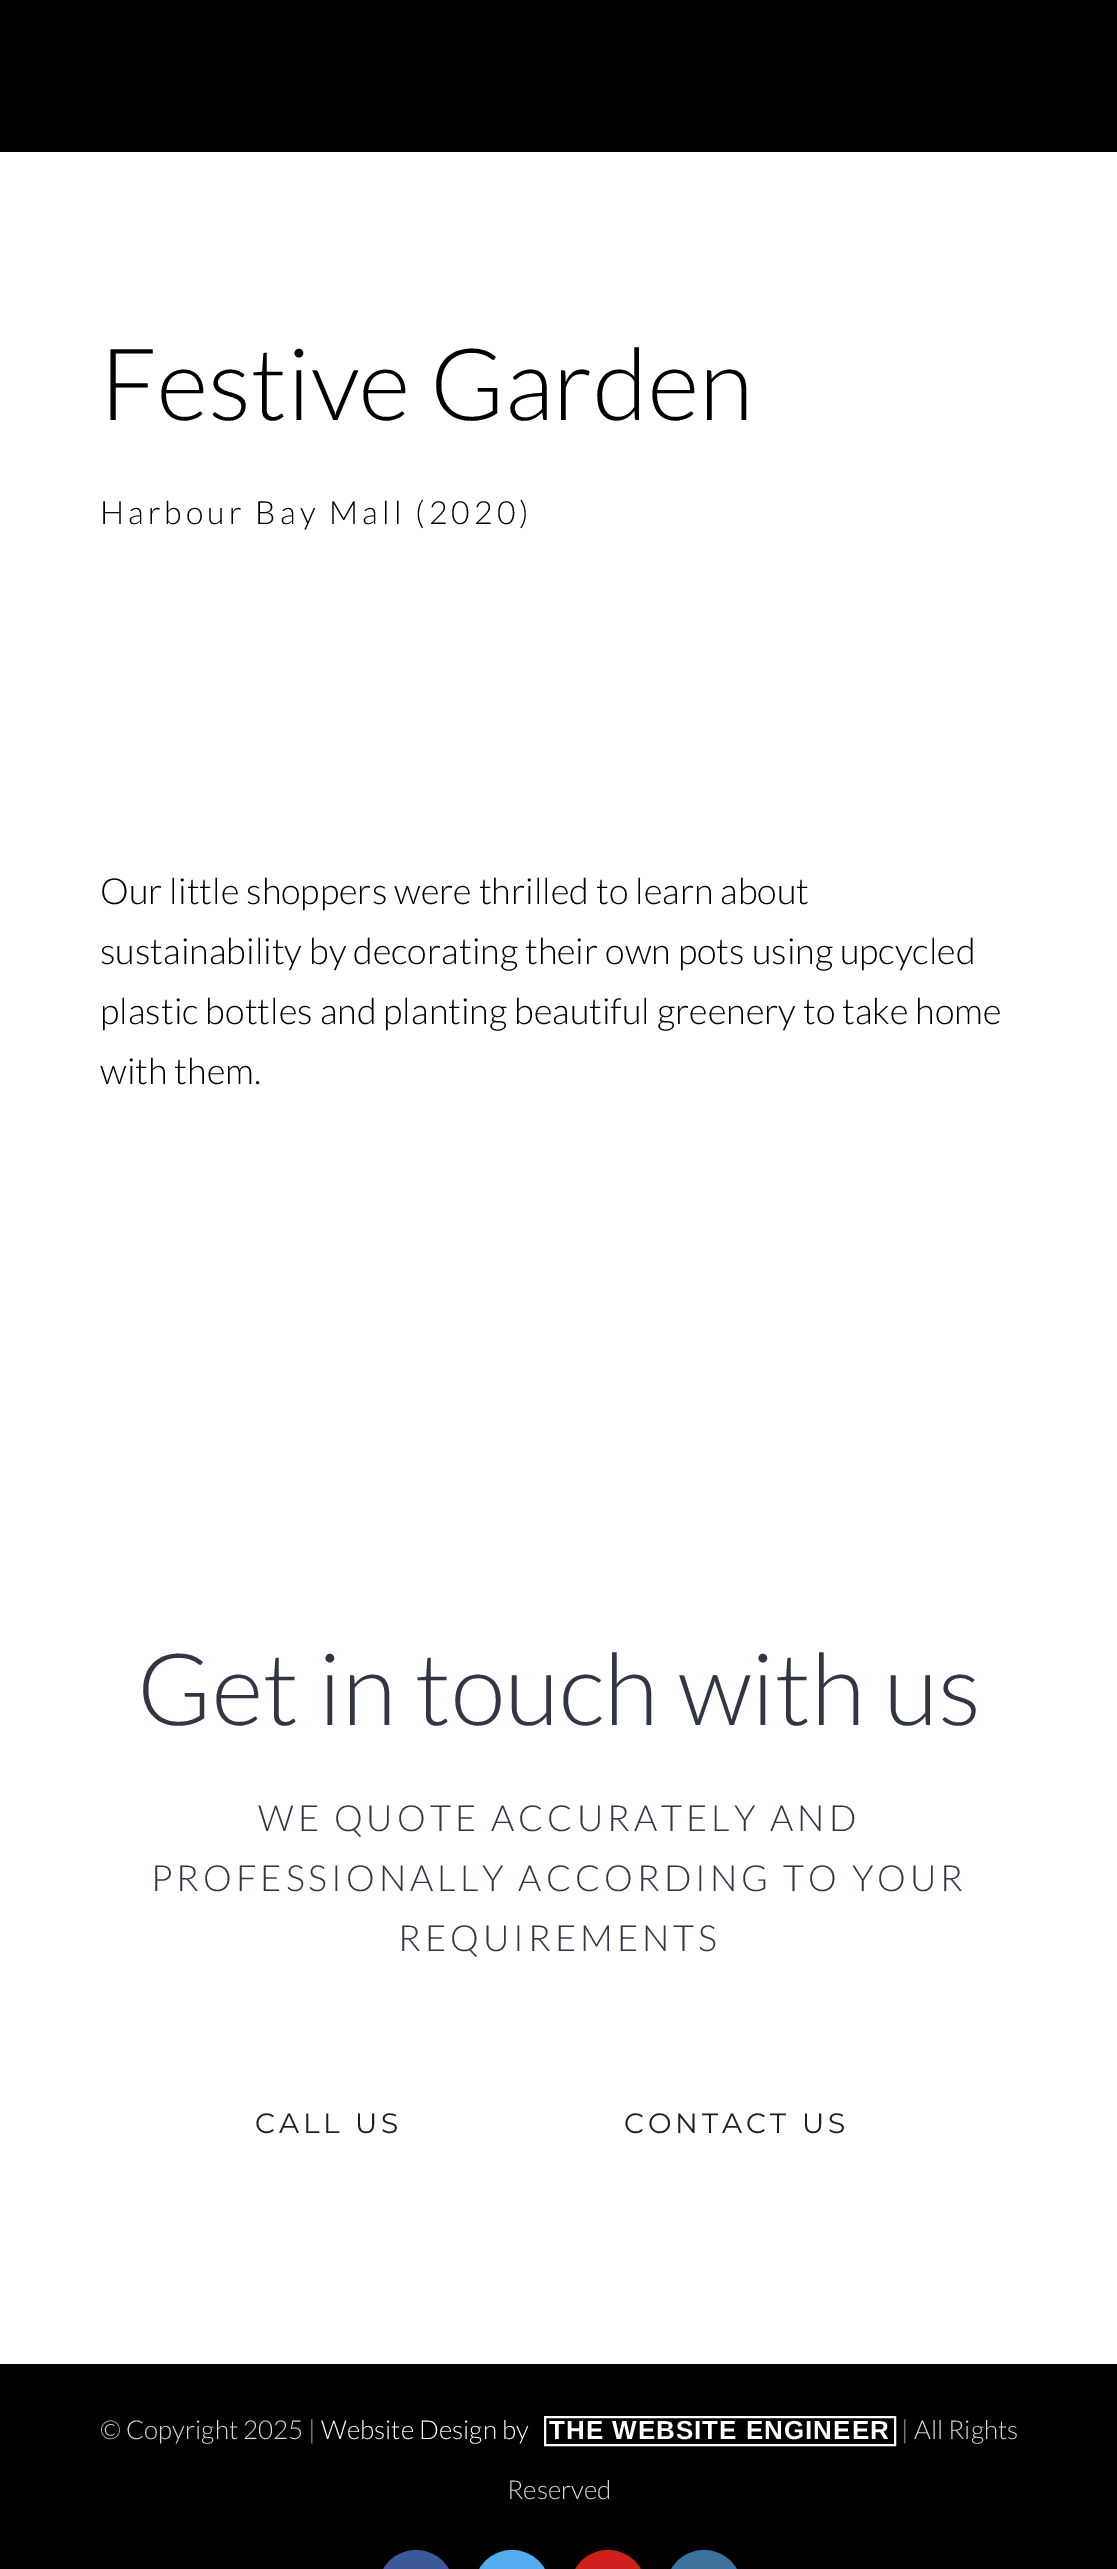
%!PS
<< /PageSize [1117 2569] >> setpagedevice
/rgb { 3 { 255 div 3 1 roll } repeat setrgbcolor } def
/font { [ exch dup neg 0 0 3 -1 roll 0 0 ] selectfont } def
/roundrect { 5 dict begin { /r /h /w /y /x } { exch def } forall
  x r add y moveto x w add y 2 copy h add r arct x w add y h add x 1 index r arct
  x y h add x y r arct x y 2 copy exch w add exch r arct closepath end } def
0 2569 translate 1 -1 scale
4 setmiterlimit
255 255 255 rgb
0 0 1117 2569 rectfill
0 0 0 rgb
0 0 1117 152 rectfill
0 2364 1117 205 rectfill
255 255 255 rgb
2 setlinewidth
545 2417 350 28 rectstroke
59 89 152 rgb
379 2551 74 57 37 roundrect gsave fill grestore
stroke
85 172 238 rgb
475 2551 74 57 37 roundrect gsave fill grestore
stroke
205 32 31 rgb
571 2551 74 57 37 roundrect gsave fill grestore
stroke
63 114 155 rgb
667 2551 74 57 37 roundrect gsave fill grestore
stroke
/Lato-Light 100 font
0 0 0 rgb
100 420 moveto (Festive Garden) show
/Lato-Light 32 font
100 524 moveto 4 0 (Harbour Bay Mall \(2020\)) ashow
/Lato-Light 36 font
[
  [(Our little shoppers were thrilled to learn about) 100 904]
  [(sustainability by decorating their own pots using upcycled) 100 964]
  [(plastic bottles and planting beautiful greenery to take home) 100 1024]
  [(with them.) 100 1084]
] { aload pop moveto show } forall
/Lato-Light 100 font
50 54 67 rgb
137 1725 moveto (Get in touch with us) show
/Lato-Light 36 font
258 1831 moveto 4 0 (WE QUOTE ACCURATELY AND) ashow
151 1891 moveto 4 0 (PROFESSIONALLY ACCORDING TO YOUR) ashow
398 1951 moveto 4 0 (REQUIREMENTS) ashow
/Montserrat-Thin 28 font
31 31 39 rgb
255 2133 moveto 4 0 (CALL US) ashow
624 2133 moveto 4 0 (CONTACT US) ashow
/Lato-Light 26 font
216 216 216 rgb
100 2439 moveto (© Copyright 2025 |) show
255 255 255 rgb
321 2439 moveto (Website Design by) show
/LiberationSans-Bold 26 font
549 2439 moveto 1 0 (THE WEBSITE ENGINEER) ashow
/Lato-Light 26 font
216 216 216 rgb
901 2439 moveto (| All Rights) show
507 2499 moveto (Reserved) show
showpage
